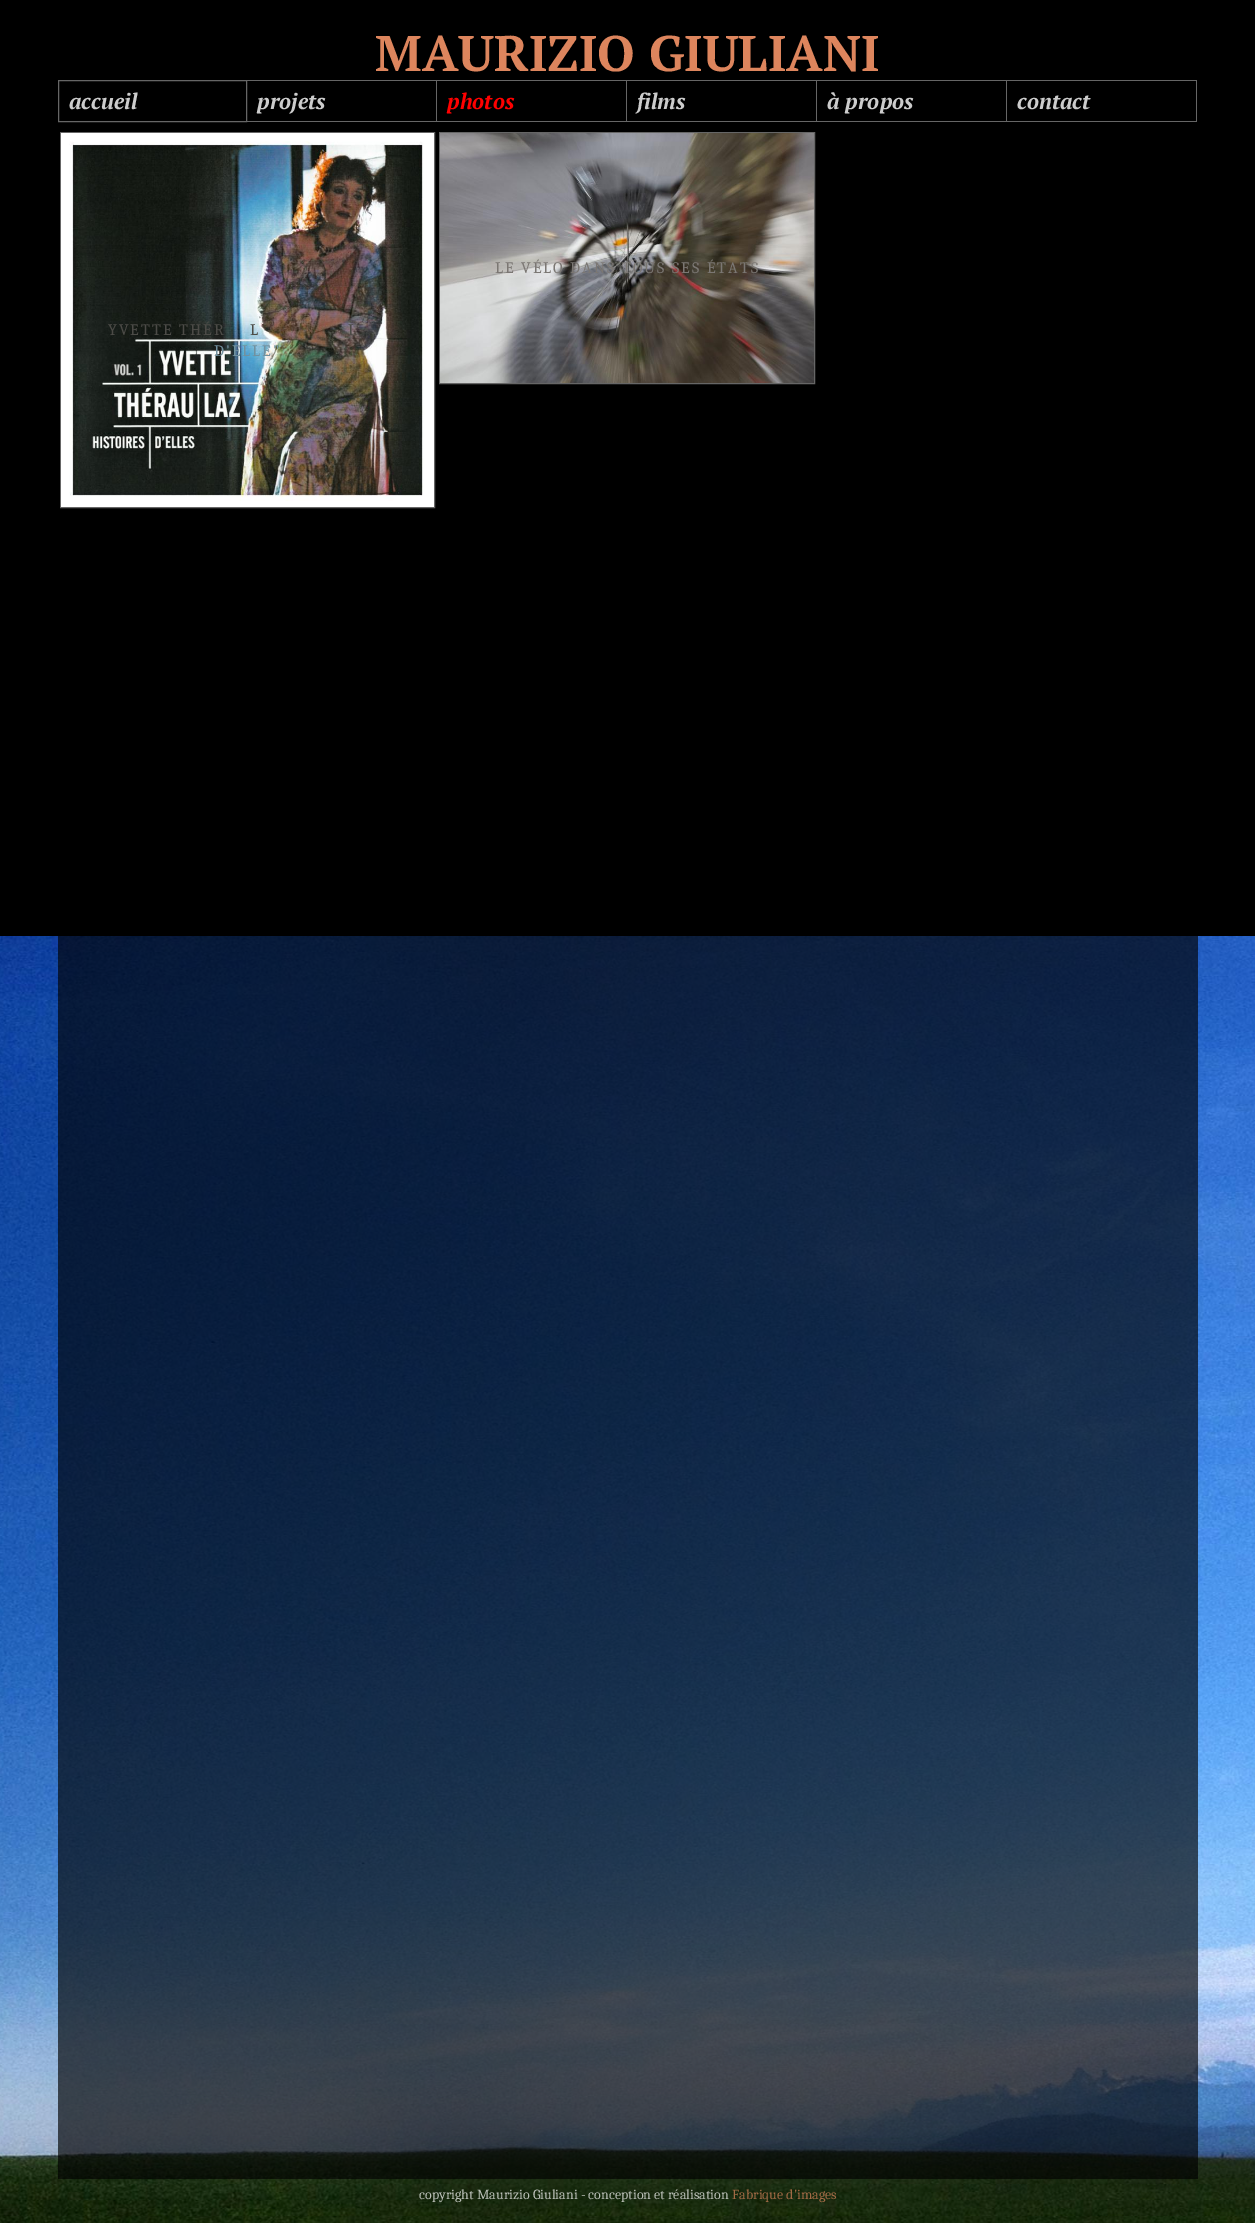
%!PS
<< /PageSize [1255 2223] /PageUsesTransparency true >> setpagedevice
/rgb { 3 { 255 div 3 1 roll } repeat setrgbcolor } def
/font { [ exch dup neg 0 0 3 -1 roll 0 0 ] selectfont } def
/alpha { dup .setfillconstantalpha .setstrokeconstantalpha } def
/picture { 5 dict begin { /h /w /y /x /name } { exch def } forall
  gsave x y translate w h scale
  w h 8 [w 0 0 h 0 0] name (r) file false 3 colorimage grestore end } def
0 .pushpdf14devicefilter
0 2223 translate 1 -1 scale
4 setmiterlimit
0 0 0 rgb
0 0 1255 2223 rectfill
(img/1.rgb) 0 936 1255 1287 picture
0.65 alpha
58 936 1140 1243 rectfill
1 alpha
102 102 102 rgb
58.5 80.5 188 41 rectstroke
[
  [247 80 950 1 102 102 102]
  [436 80 1 42 102 102 102]
  [247 121 190 1 102 102 102]
  [626 80 1 42 102 102 102]
  [437 121 190 1 102 102 102]
  [816 80 1 42 102 102 102]
  [627 121 190 1 102 102 102]
  [1006 80 1 42 102 102 102]
  [817 121 190 1 102 102 102]
  [1196 80 1 42 102 102 102]
  [1007 121 190 1 102 102 102]
] { aload pop rgb rectfill } forall
439.5 132.5 375 251 rectstroke
(img/2.rgb) 440 133 374 250 picture
60.5 132.5 374 375 rectstroke
(img/3.rgb) 61 133 373 374 picture
/PTSerif-Bold 50 font
221 133 93 rgb
375 71 moveto (MAURIZIO GIULIANI) show
/PTSerif-BoldItalic 22 font
204 204 204 rgb
69 109 moveto (accueil) show
257 109 moveto (projets) show
255 0 0 rgb
447 109 moveto (photos) show
204 204 204 rgb
[
  [(films) 637 109]
  [(à propos) 827 109]
  [(contact) 1017 109]
] { aload pop moveto show } forall
/Caladea-Regular 16 font
123 119 115 rgb
495 273 moveto 2 0 (LE VÉLO DANS TOUS SES ÉTATS) ashow
76 75 71 rgb
108 335 moveto 2 0 (YVETTE THÉR) ashow
250 335 moveto 2 0 (L) ashow
348 335 moveto 2 0 (I) ashow
113 145 159 rgb
214 356 moveto 2 0 (D'ELLE") ashow
/Caladea-Regular 14 font
186 191 183 rgb
419 2199 moveto (copyright Maurizio Giuliani - conception et réalisation) show
162 106 69 rgb
732 2199 moveto (Fabrique d'images) show
.poppdf14devicefilter showpage
